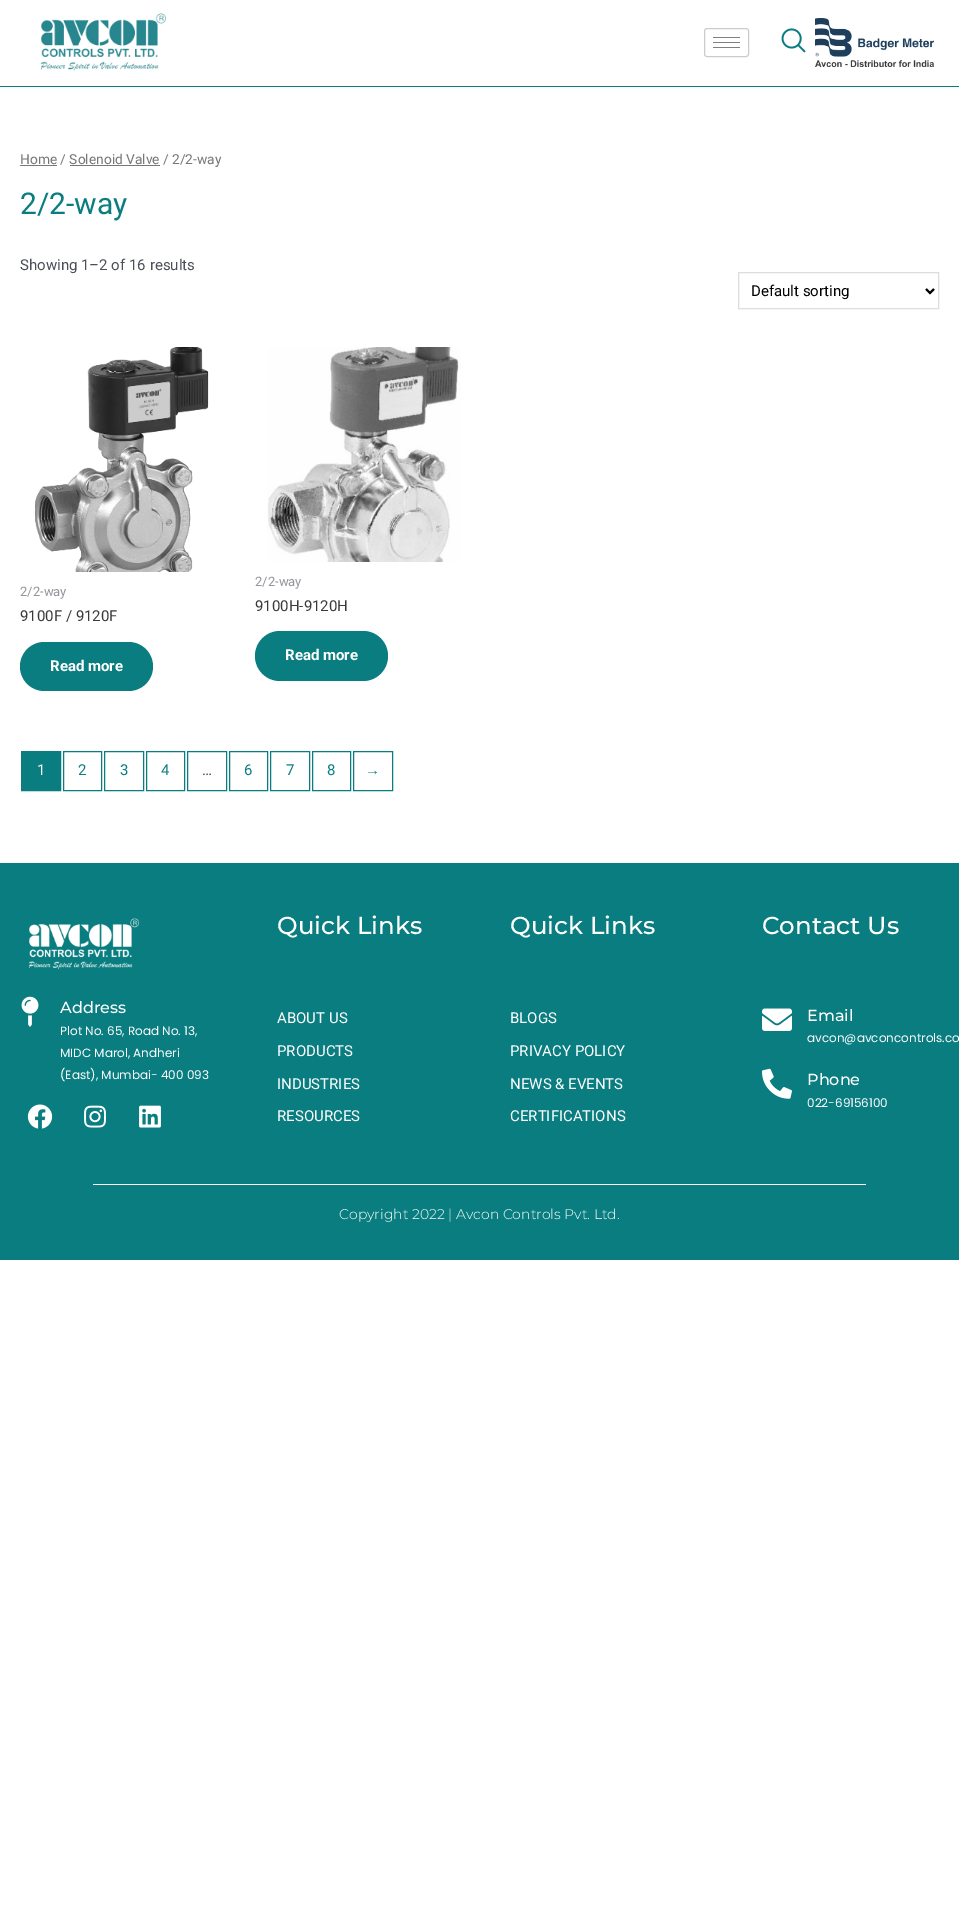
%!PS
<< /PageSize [959 1930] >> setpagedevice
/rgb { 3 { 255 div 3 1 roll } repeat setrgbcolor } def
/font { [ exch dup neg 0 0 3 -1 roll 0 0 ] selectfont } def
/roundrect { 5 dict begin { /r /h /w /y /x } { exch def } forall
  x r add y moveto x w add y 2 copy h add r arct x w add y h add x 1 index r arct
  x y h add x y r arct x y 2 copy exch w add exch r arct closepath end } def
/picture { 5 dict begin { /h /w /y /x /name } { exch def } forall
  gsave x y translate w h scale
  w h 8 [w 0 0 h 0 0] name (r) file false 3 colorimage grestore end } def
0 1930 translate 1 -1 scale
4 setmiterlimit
255 255 255 rgb
0 0 959 1930 rectfill
9 125 127 rgb
0 86 959 1 rectfill
(img/1.rgb) 40 13 126 58 picture
204 204 204 rgb
704.5 28.5 44 28 2.5 roundrect stroke
[
  [713 37 27 1 128 128 128]
  [713 42 27 1 128 128 128]
  [713 47 27 1 128 128 128]
] { aload pop rgb rectfill } forall
(img/2.rgb) 781 28 25 25 picture
(img/3.rgb) 815 18 119 49 picture
119 119 119 rgb
20 165 37 1 rectfill
70 165 90 1 rectfill
221 221 221 rgb
738.5 272.5 200 36 rectstroke
0 0 0 rgb
2 setlinewidth
926 289 moveto 930 293 lineto 934 289 lineto stroke
(img/4.rgb) 35 347 174 225 picture
9 125 127 rgb
20 642 133 49 24.5 roundrect fill
(img/5.rgb) 267 347 194 215 picture
255 631 133 50 25 roundrect fill
1 setlinewidth
21.5 751.5 39 39 rectstroke
22 752 38 38 rectfill
63.5 751.5 38 39 rectstroke
104.5 751.5 39 39 rectstroke
146.5 751.5 38 39 rectstroke
187.5 751.5 39 39 rectstroke
229.5 751.5 38 39 rectstroke
270.5 751.5 39 39 rectstroke
312.5 751.5 38 39 rectstroke
353.5 751.5 39 39 rectstroke
0 863 959 397 rectfill
(img/6.rgb) 28 918 111 52 picture
(img/7.rgb) 21 996 18 31 picture
(img/8.rgb) 27 1104 26 25 picture
(img/9.rgb) 84 1105 22 23 picture
(img/10.rgb) 139 1105 22 23 picture
(img/11.rgb) 762 1008 30 23 picture
(img/12.rgb) 762 1068 30 31 picture
255 255 255 rgb
93 1184 773 1 rectfill
/Roboto-Regular 13.75 font
119 119 119 rgb
20 164 moveto (Home / Solenoid Valve / 2/2-way) show
/Roboto-Regular 30 font
9 125 127 rgb
20 214 moveto (2/2-way) show
/Roboto-Regular 15 font
75 79 88 rgb
20 270 moveto (Showing 1–2 of 16 results) show
0 0 0 rgb
751 296 moveto (Default sorting) show
/Roboto-Regular 13 font
147 149 155 rgb
20 596 moveto (2/2-way) show
/Roboto-Regular 15 font
58 58 58 rgb
20 621 moveto (9100F / 9120F) show
/Roboto-Bold 15 font
255 255 255 rgb
50 671 moveto (Read more) show
/Roboto-Regular 13 font
147 149 155 rgb
255 586 moveto (2/2-way) show
/Roboto-Regular 15 font
58 58 58 rgb
255 611 moveto (9100H-9120H) show
/Roboto-Bold 15 font
255 255 255 rgb
285 660 moveto (Read more) show
/Roboto-Regular 15 font
37 775 moveto (1) show
9 125 127 rgb
[
  [(2) 78 775]
  [(3) 120 775]
  [(4) 161 775]
] { aload pop moveto show } forall
75 79 88 rgb
202 775 moveto (…) show
9 125 127 rgb
[
  [(6) 244 775]
  [(7) 286 775]
  [(8) 327 775]
] { aload pop moveto show } forall
/LiberationSans-Regular 15 font
365 775 moveto (→) show
/Montserrat-Thin 16 font
255 255 255 rgb
60 1013 moveto (Address) show
/Poppins-Regular 12 font
[
  [(Plot No. 65, Road No. 13,) 60 1035]
  [(MIDC Marol, Andheri) 60 1057]
  [(\(East\), Mumbai- 400 093) 60 1079]
] { aload pop moveto show } forall
/Montserrat-Thin 24.5 font
277 934 moveto (Quick Links) show
/Roboto-Regular 15 font
[
  [(ABOUT US) 277 1023]
  [(PRODUCTS) 277 1056]
  [(INDUSTRIES) 277 1089]
  [(RESOURCES) 277 1121]
] { aload pop moveto show } forall
/Montserrat-Thin 24.5 font
510 934 moveto (Quick Links) show
/Roboto-Regular 15 font
[
  [(BLOGS) 510 1023]
  [(PRIVACY POLICY) 510 1056]
  [(NEWS & EVENTS) 510 1089]
  [(CERTIFICATIONS) 510 1121]
] { aload pop moveto show } forall
/Montserrat-Thin 24.5 font
762 934 moveto (Contact Us) show
/Montserrat-Thin 16 font
807 1021 moveto (Email) show
/Poppins-Regular 12 font
807 1042 moveto (avcon@avconcontrols.co) show
/Montserrat-Thin 16 font
807 1085 moveto (Phone) show
/Poppins-Regular 12 font
807 1107 moveto (022-69156100) show
/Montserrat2-Thin 14 font
339 1219 moveto (Copyright 2022 | Avcon Controls Pvt. Ltd.) show
showpage
